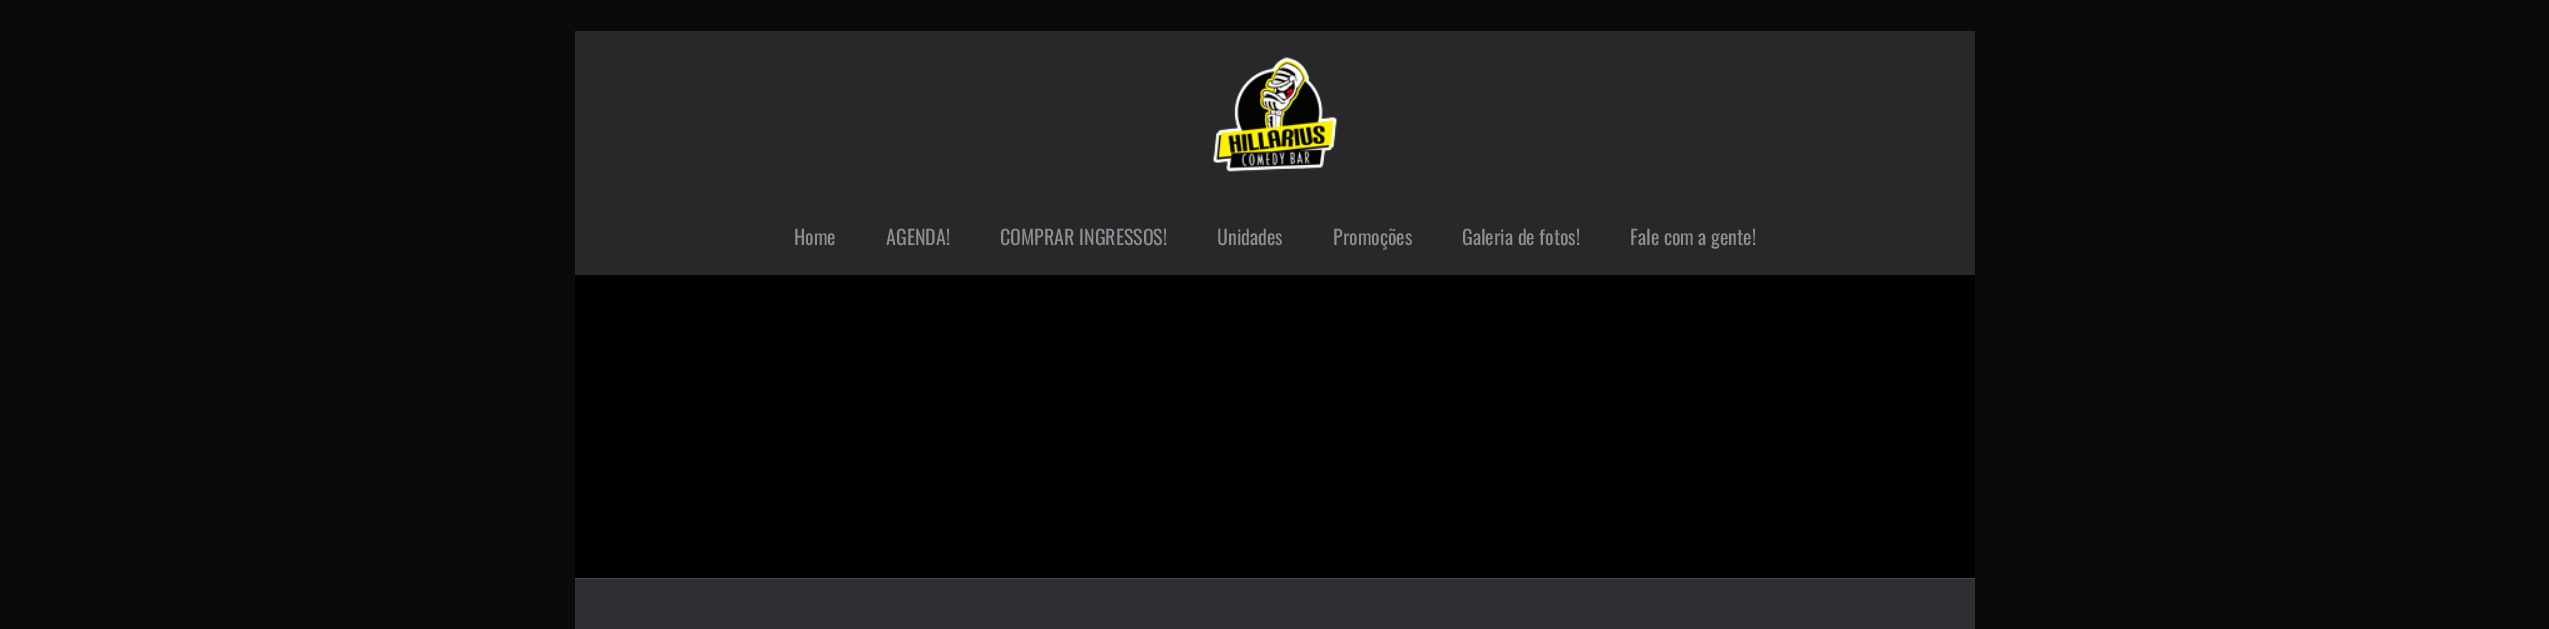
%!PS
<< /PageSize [2549 629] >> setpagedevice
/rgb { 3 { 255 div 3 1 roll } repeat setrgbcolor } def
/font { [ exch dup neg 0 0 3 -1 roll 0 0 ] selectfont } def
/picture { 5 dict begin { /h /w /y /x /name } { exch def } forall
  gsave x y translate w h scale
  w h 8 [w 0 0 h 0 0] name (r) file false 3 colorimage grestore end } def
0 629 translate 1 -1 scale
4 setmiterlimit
10 10 10 rgb
0 0 2549 629 rectfill
[
  [575 275 1400 303 0 0 0]
  [575 31 1400 244 40 40 40]
  [601 198 1348 1 37 37 37]
] { aload pop rgb rectfill } forall
(img/1.rgb) 1212 57 126 115 picture
47 48 51 rgb
575 579 1400 50 rectfill
68 69 71 rgb
575 578 1400 1 rectfill
/Oswald-Regular 20 font
139 142 147 rgb
[
  [(Home) 794 245]
  [(AGENDA!) 886 245]
  [(COMPRAR INGRESSOS!) 1000 245]
  [(Unidades) 1217 245]
  [(Promoções) 1333 245]
  [(Galeria de fotos!) 1462 245]
  [(Fale com a gente!) 1630 245]
] { aload pop moveto show } forall
showpage
